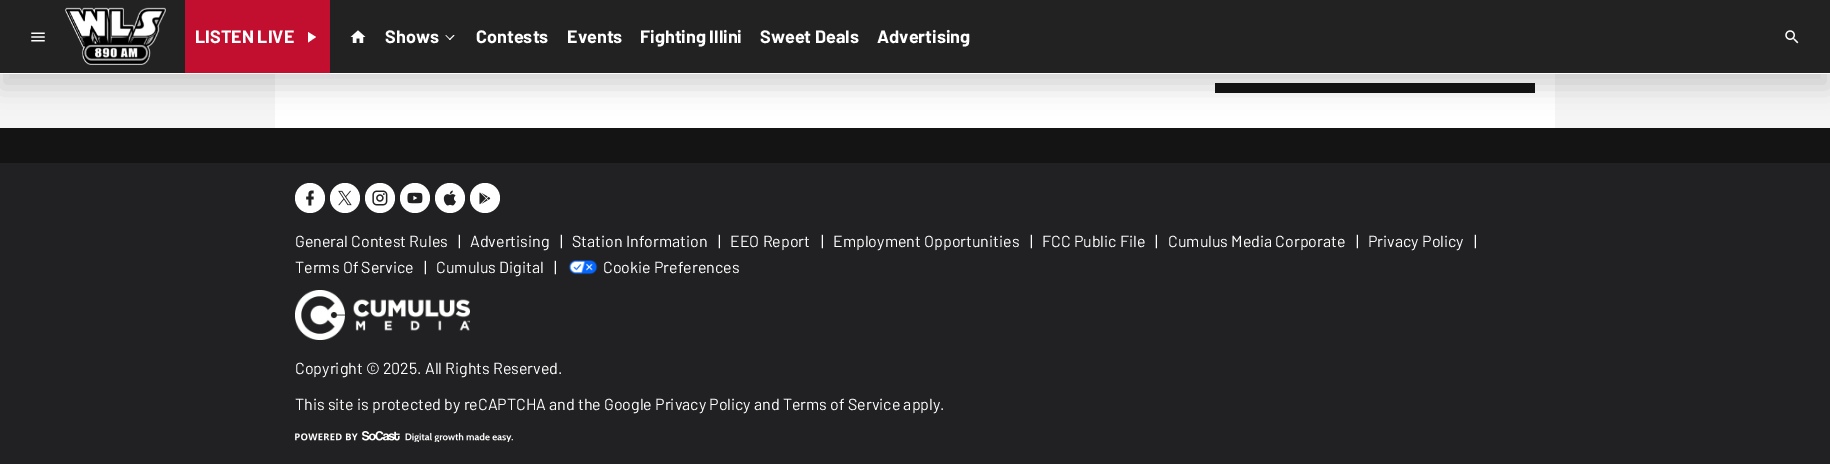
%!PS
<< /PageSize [1830 464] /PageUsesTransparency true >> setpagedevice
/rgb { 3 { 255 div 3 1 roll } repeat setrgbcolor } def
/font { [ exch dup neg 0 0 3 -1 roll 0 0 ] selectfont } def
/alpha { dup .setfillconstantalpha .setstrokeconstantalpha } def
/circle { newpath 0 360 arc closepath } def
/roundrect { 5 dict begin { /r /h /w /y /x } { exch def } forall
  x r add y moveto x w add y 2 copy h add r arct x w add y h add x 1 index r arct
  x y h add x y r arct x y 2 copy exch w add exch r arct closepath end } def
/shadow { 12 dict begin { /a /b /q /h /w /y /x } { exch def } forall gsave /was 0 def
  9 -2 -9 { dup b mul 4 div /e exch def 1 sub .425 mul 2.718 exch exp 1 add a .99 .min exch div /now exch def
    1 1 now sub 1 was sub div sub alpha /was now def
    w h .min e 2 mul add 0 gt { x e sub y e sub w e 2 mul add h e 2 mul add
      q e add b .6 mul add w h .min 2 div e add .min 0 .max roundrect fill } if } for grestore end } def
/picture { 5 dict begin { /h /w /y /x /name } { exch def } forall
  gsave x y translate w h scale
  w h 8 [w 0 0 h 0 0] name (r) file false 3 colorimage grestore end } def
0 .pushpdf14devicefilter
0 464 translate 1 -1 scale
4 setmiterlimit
245 245 245 rgb
0 0 1830 464 rectfill
255 255 255 rgb
275 74 1280 54 rectfill
20 20 20 rgb
1215 83 320 10 rectfill
0 0 0 rgb
0 13 1830 75 0 12.5 0.16 shadow
34 34 34 rgb
0 0 1830 73 rectfill
255 255 255 rgb
0 73 1830 1 rectfill
(img/1.rgb) 31 32 14 10 picture
(img/2.rgb) 65 7 101 58 picture
194 15 47 rgb
185 0 145 73 rectfill
255 255 255 rgb
308 32 moveto 308 42.5 lineto 316 37 lineto closepath fill
(img/3.rgb) 350 30 16 13 picture
454.5 35.5 moveto 450 40 lineto 449 39.5 lineto 453.5 35 lineto closepath fill
450.5 39.5 moveto 450 40 lineto 445.5 35.5 lineto 446 35 lineto closepath fill
(img/4.rgb) 1785 30 14 14 picture
20 20 20 rgb
0 128 1830 35 rectfill
33 33 35 rgb
0 163 1830 301 rectfill
255 255 255 rgb
310 198 15 circle fill
(img/5.rgb) 306 190 8 16 picture
345 198 15 circle fill
(img/6.rgb) 338 190 14 16 picture
380 198 15 circle fill
(img/7.rgb) 372 190 16 16 picture
415 198 15 circle fill
(img/8.rgb) 407 192 16 12 picture
450 198 15 circle fill
(img/9.rgb) 443 190 13 16 picture
485 198 15 circle fill
(img/10.rgb) 479 192 12 13 picture
(img/11.rgb) 568 260 30 15 picture
(img/12.rgb) 295 290 175 50 picture
(img/13.rgb) 295 431 218 11 picture
/Barlow-Bold 18 font
[
  [(LISTEN LIVE) 195 43]
  [(Shows) 385 43]
  [(Contests) 476 43]
  [(Events) 567 43]
  [(Fighting Illini) 640 43]
  [(Sweet Deals) 760 43]
  [(Advertising) 877 43]
] { aload pop moveto show } forall
/Barlow-Regular 16 font
[
  [(General Contest Rules) 295 247]
  [(|) 458 247]
  [(Advertising) 470 247]
  [(|) 560 247]
  [(Station Information) 572 247]
  [(|) 718 247]
  [(EEO Report) 730 247]
  [(|) 821 247]
  [(Employment Opportunities) 833 247]
  [(|) 1030 247]
  [(FCC Public File) 1042 247]
  [(|) 1155 247]
  [(Cumulus Media Corporate) 1168 247]
  [(|) 1356 247]
  [(Privacy Policy) 1368 247]
  [(|) 1474 247]
  [(Terms Of Service) 295 273]
  [(|) 424 273]
  [(Cumulus Digital) 436 273]
  [(|) 554 273]
  [(Cookie Preferences) 603 273]
  [(Copyright © 2025. All Rights Reserved.) 295 374]
  [(This site is protected by reCAPTCHA and the Google Privacy Policy and Terms of Service apply.) 295 410]
] { aload pop moveto show } forall
.poppdf14devicefilter showpage
